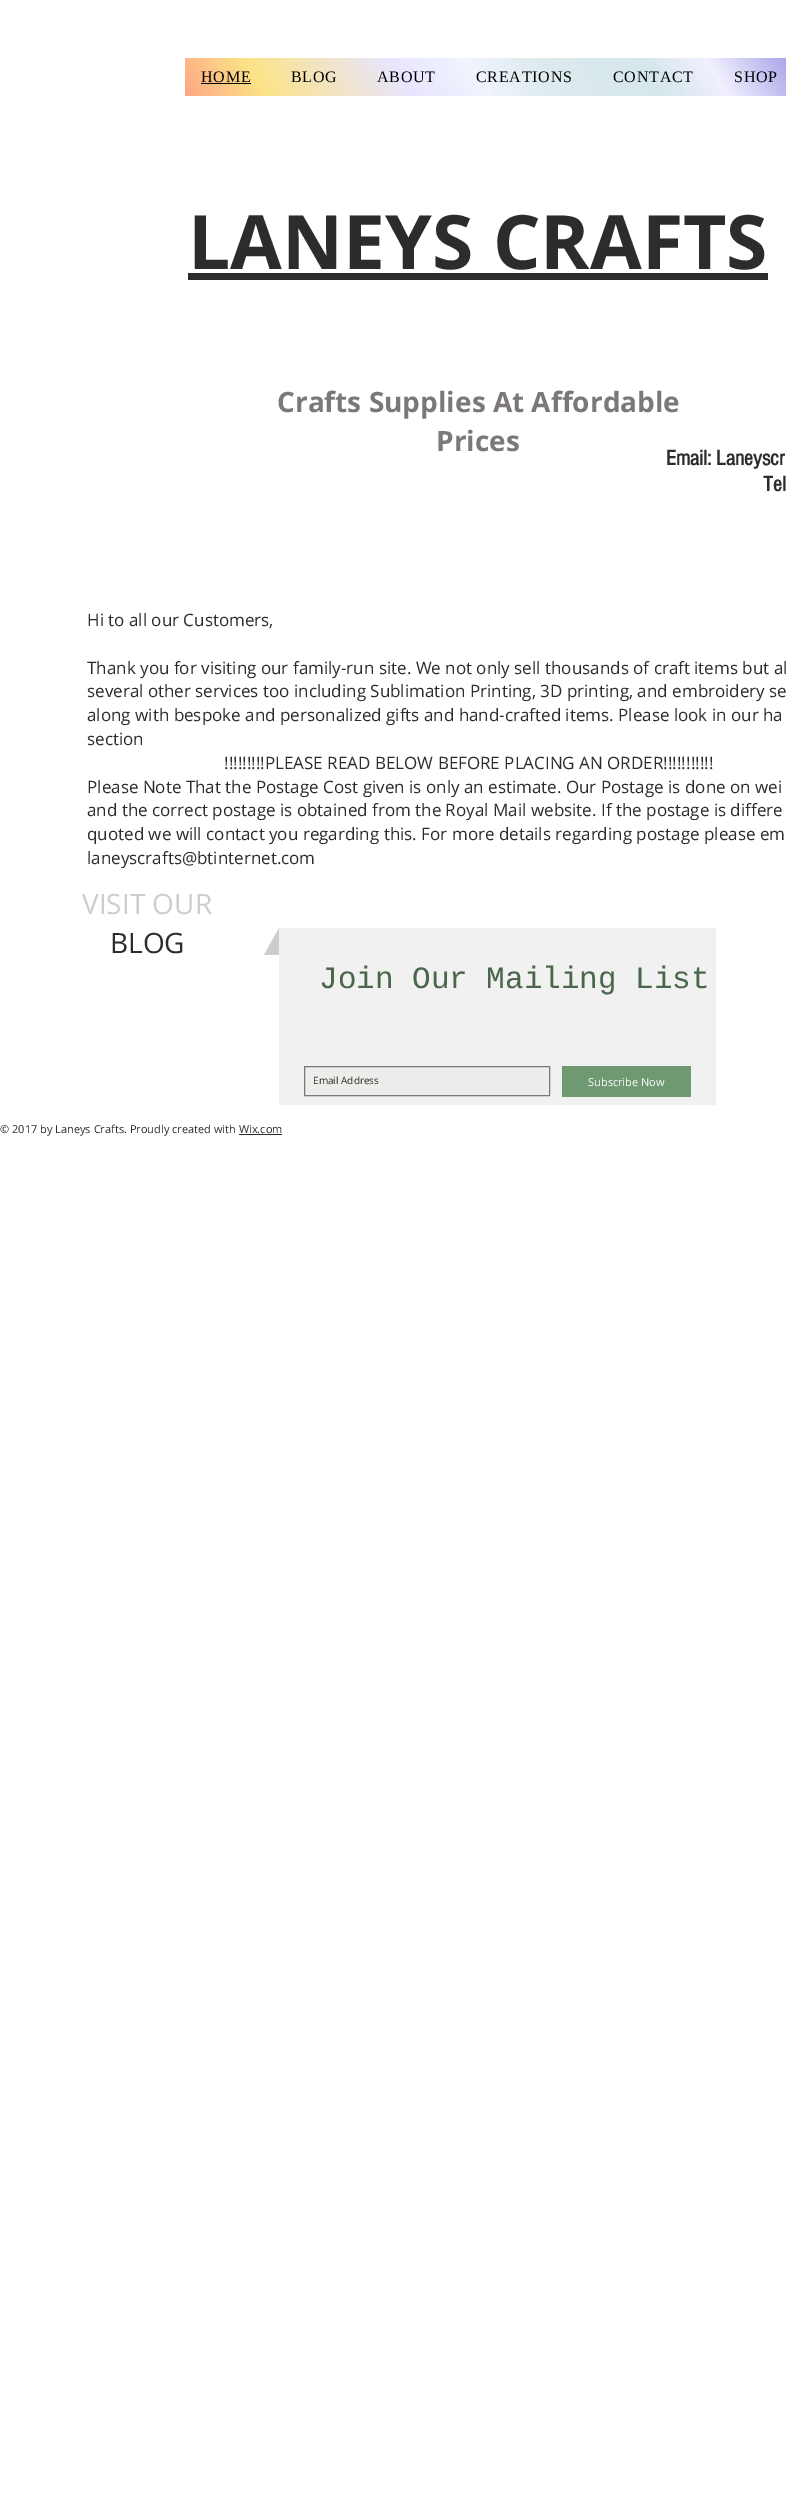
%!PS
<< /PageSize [786 2497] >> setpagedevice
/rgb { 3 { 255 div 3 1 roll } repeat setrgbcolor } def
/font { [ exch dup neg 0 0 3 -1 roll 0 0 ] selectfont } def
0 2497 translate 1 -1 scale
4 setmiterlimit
255 255 255 rgb
0 0 786 2497 rectfill
gsave 185 58 moveto 786 58 lineto 786 96 lineto 185 96 lineto closepath clip newpath
<< /ShadingType 2 /ColorSpace /DeviceRGB /Coords [262 219 717 -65] /Extend [true true] /Function << /FunctionType 3 /Domain [0 1] /Functions [<< /FunctionType 2 /Domain [0 1] /C0 [1 0.651 0.522] /C1 [0.988 0.89 0.529] /N 1 >> << /FunctionType 2 /Domain [0 1] /C0 [0.988 0.89 0.529] /C1 [0.91 0.902 1] /N 1 >> << /FunctionType 2 /Domain [0 1] /C0 [0.91 0.902 1] /C1 [0.945 0.957 0.992] /N 1 >> << /FunctionType 2 /Domain [0 1] /C0 [0.945 0.957 0.992] /C1 [0.867 0.922 0.937] /N 1 >> << /FunctionType 2 /Domain [0 1] /C0 [0.867 0.922 0.937] /C1 [0.839 0.906 0.925] /N 1 >> << /FunctionType 2 /Domain [0 1] /C0 [0.839 0.906 0.925] /C1 [0.945 0.941 1] /N 1 >> << /FunctionType 2 /Domain [0 1] /C0 [0.945 0.941 1] /C1 [0.663 0.647 0.91] /N 1 >> << /FunctionType 2 /Domain [0 1] /C0 [0.663 0.647 0.91] /C1 [0.663 0.647 0.91] /N 1 >>] /Bounds [0.13 0.36 0.48 0.59 0.76 0.86 0.99] /Encode [0 1 0 1 0 1 0 1 0 1 0 1 0 1 0 1] >> >> shfill grestore
0 0 0 rgb
201 83 50 1 rectfill
44 44 43 rgb
188 273 580 7 rectfill
205 205 201 rgb
279 928 moveto 279 955 lineto 264 955 lineto closepath fill
241 241 241 rgb
279 928 437 177 rectfill
237 237 236 rgb
304.5 1066.5 moveto 549.5 1066.5 lineto 549.5 1095.5 lineto 304.5 1095.5 lineto closepath gsave fill grestore
124 120 120 rgb
stroke
111 153 113 rgb
562 1066 129 31 rectfill
44 44 43 rgb
239 1134 43 1 rectfill
/LiberationSerif-Regular 16 font
0 0 0 rgb
201 82 moveto 0.75 0 (HOME) ashow
291 82 moveto 0.75 0 (BLOG) ashow
377 82 moveto 0.75 0 (ABOUT) ashow
476 82 moveto 0.75 0 (CREATIONS) ashow
613 82 moveto 0.75 0 (CONTACT) ashow
734 82 moveto 0.75 0 (SHOP) ashow
/OpenSans-Bold 75 font
44 44 43 rgb
188 269 moveto (LANEYS CRAFTS) show
/OpenSans-Bold 28 font
124 120 120 rgb
277 412 moveto (Crafts Supplies At Affordable) show
436 451 moveto (Prices) show
/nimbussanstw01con-Bold 22 font
44 44 43 rgb
666 465 moveto (Email: Laneyscr) show
763 491 moveto (Tel) show
/OpenSans-Regular 17 font
[
  [(Hi to all our Customers,) 87 626]
  [(Thank you for visiting our family-run site. We not only sell thousands of craft items but al) 87 674]
  [(several other services too including Sublimation Printing, 3D printing, and embroidery se) 87 697]
  [(along with bespoke and personalized gifts and hand-crafted items. Please look in our ha) 87 721]
  [(section) 87 745]
  [(!!!!!!!!!PLEASE READ BELOW BEFORE PLACING AN ORDER!!!!!!!!!!!) 224 769]
  [(Please Note That the Postage Cost given is only an estimate. Our Postage is done on wei) 87 793]
  [(and the correct postage is obtained from the Royal Mail website. If the postage is differe) 87 816]
  [(quoted we will contact you regarding this. For more details regarding postage please em) 87 840]
  [(laneyscrafts@btinternet.com) 87 864]
] { aload pop moveto show } forall
/OpenSans-Regular 28 font
205 205 201 rgb
82 914 moveto (VISIT OUR) show
44 44 43 rgb
110 953 moveto (BLOG) show
/LiberationMono-Regular 31 font
74 102 75 rgb
319 988 moveto (Join Our Mailing List) show
/OpenSans-Regular 10 font
37 51 37 rgb
313 1084 moveto (Email Address) show
/OpenSans-Regular 11 font
255 255 255 rgb
588 1086 moveto (Subscribe Now) show
44 44 43 rgb
0 1133 moveto (© 2017 by Laneys Crafts. Proudly created with Wix.com) show
showpage
